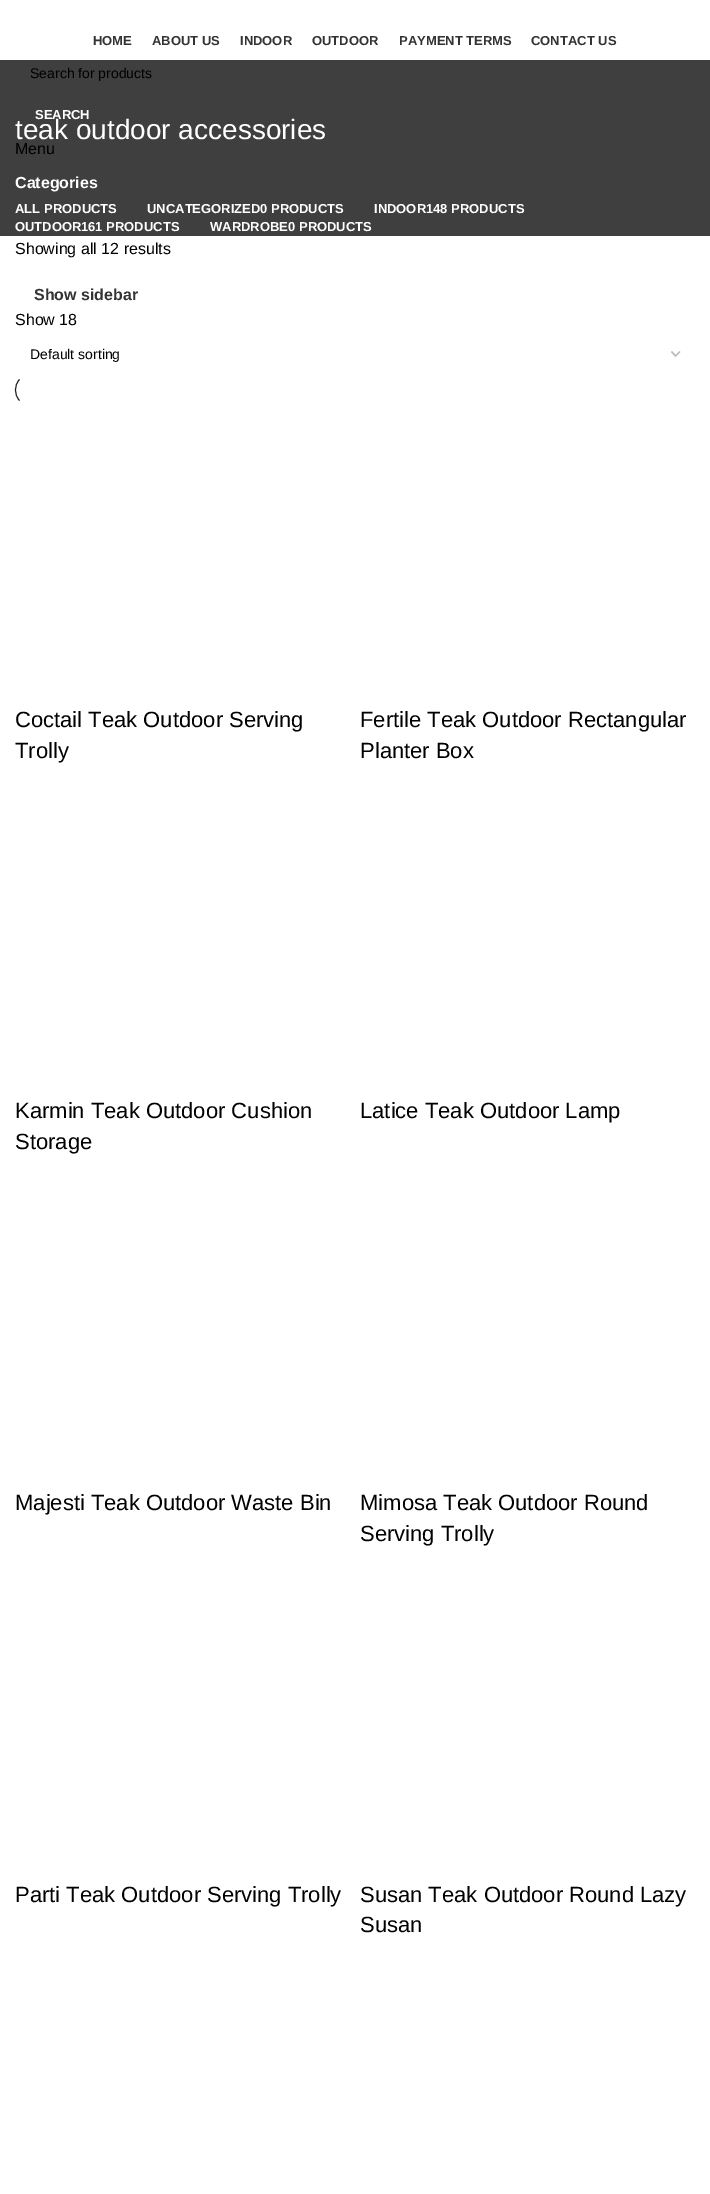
%!PS
<< /PageSize [710 2194] >> setpagedevice
/rgb { 3 { 255 div 3 1 roll } repeat setrgbcolor } def
/font { [ exch dup neg 0 0 3 -1 roll 0 0 ] selectfont } def
0 2194 translate 1 -1 scale
4 setmiterlimit
255 255 255 rgb
0 0 710 2194 rectfill
63 63 63 rgb
0 60 710 176 rectfill
187 187 187 rgb
1.4 setlinewidth
671.5 351.5 moveto 675.5 356 lineto 680 351.5 lineto stroke
36 36 36 rgb
1 setlinewidth
19.5 400.5 moveto 14 394.5 14 385.5 19.5 379.5 curveto stroke
/LiberationSans-Bold 13 font
51 51 51 rgb
[
  [(HOME) 93 45]
  [(ABOUT US) 152 45]
  [(INDOOR) 240 45]
  [(OUTDOOR) 312 45]
  [(PAYMENT TERMS) 399 45]
  [(CONTACT US) 531 45]
] { aload pop moveto show } forall
/LiberationSans-Regular 14 font
0 0 0 rgb
30 78 moveto (Search for products) show
/LiberationSans-Bold 13 font
255 255 255 rgb
35 119 moveto (SEARCH) show
/LiberationSans-Regular 16 font
0 0 0 rgb
15 154 moveto (Menu) show
/LiberationSans-Regular 28 font
255 255 255 rgb
15 139 moveto (teak outdoor accessories) show
/LiberationSans-Bold 16 font
15 188 moveto (Categories) show
/LiberationSans-Bold 13 font
[
  [(ALL) 15 213]
  [(PRODUCTS) 44 213]
  [(UNCATEGORIZED) 147 213]
  [(0 PRODUCTS) 260 213]
  [(INDOOR) 374 213]
  [(148 PRODUCTS) 426 213]
  [(OUTDOOR) 15 231]
  [(161 PRODUCTS) 81 231]
  [(WARDROBE) 210 231]
  [(0 PRODUCTS) 288 231]
] { aload pop moveto show } forall
/LiberationSans-Regular 16 font
0 0 0 rgb
15 254 moveto (Showing all 12 results) show
/LiberationSans-Bold 16 font
51 51 51 rgb
34 300 moveto (Show sidebar) show
/LiberationSans-Regular 16 font
0 0 0 rgb
15 325 moveto (Show 18) show
/LiberationSans-Regular 14 font
30 359 moveto (Default sorting) show
/LiberationSans-Regular 22 font
[
  [(Coctail Teak Outdoor Serving) 15 727]
  [(Trolly) 15 758]
  [(Fertile Teak Outdoor Rectangular) 360 727]
  [(Planter Box) 360 758]
  [(Karmin Teak Outdoor Cushion) 15 1118]
  [(Storage) 15 1149]
  [(Latice Teak Outdoor Lamp) 360 1118]
  [(Majesti Teak Outdoor Waste Bin) 15 1510]
  [(Mimosa Teak Outdoor Round) 360 1510]
  [(Serving Trolly) 360 1541]
  [(Parti Teak Outdoor Serving Trolly) 15 1902]
  [(Susan Teak Outdoor Round Lazy) 360 1902]
  [(Susan) 360 1932]
] { aload pop moveto show } forall
showpage
